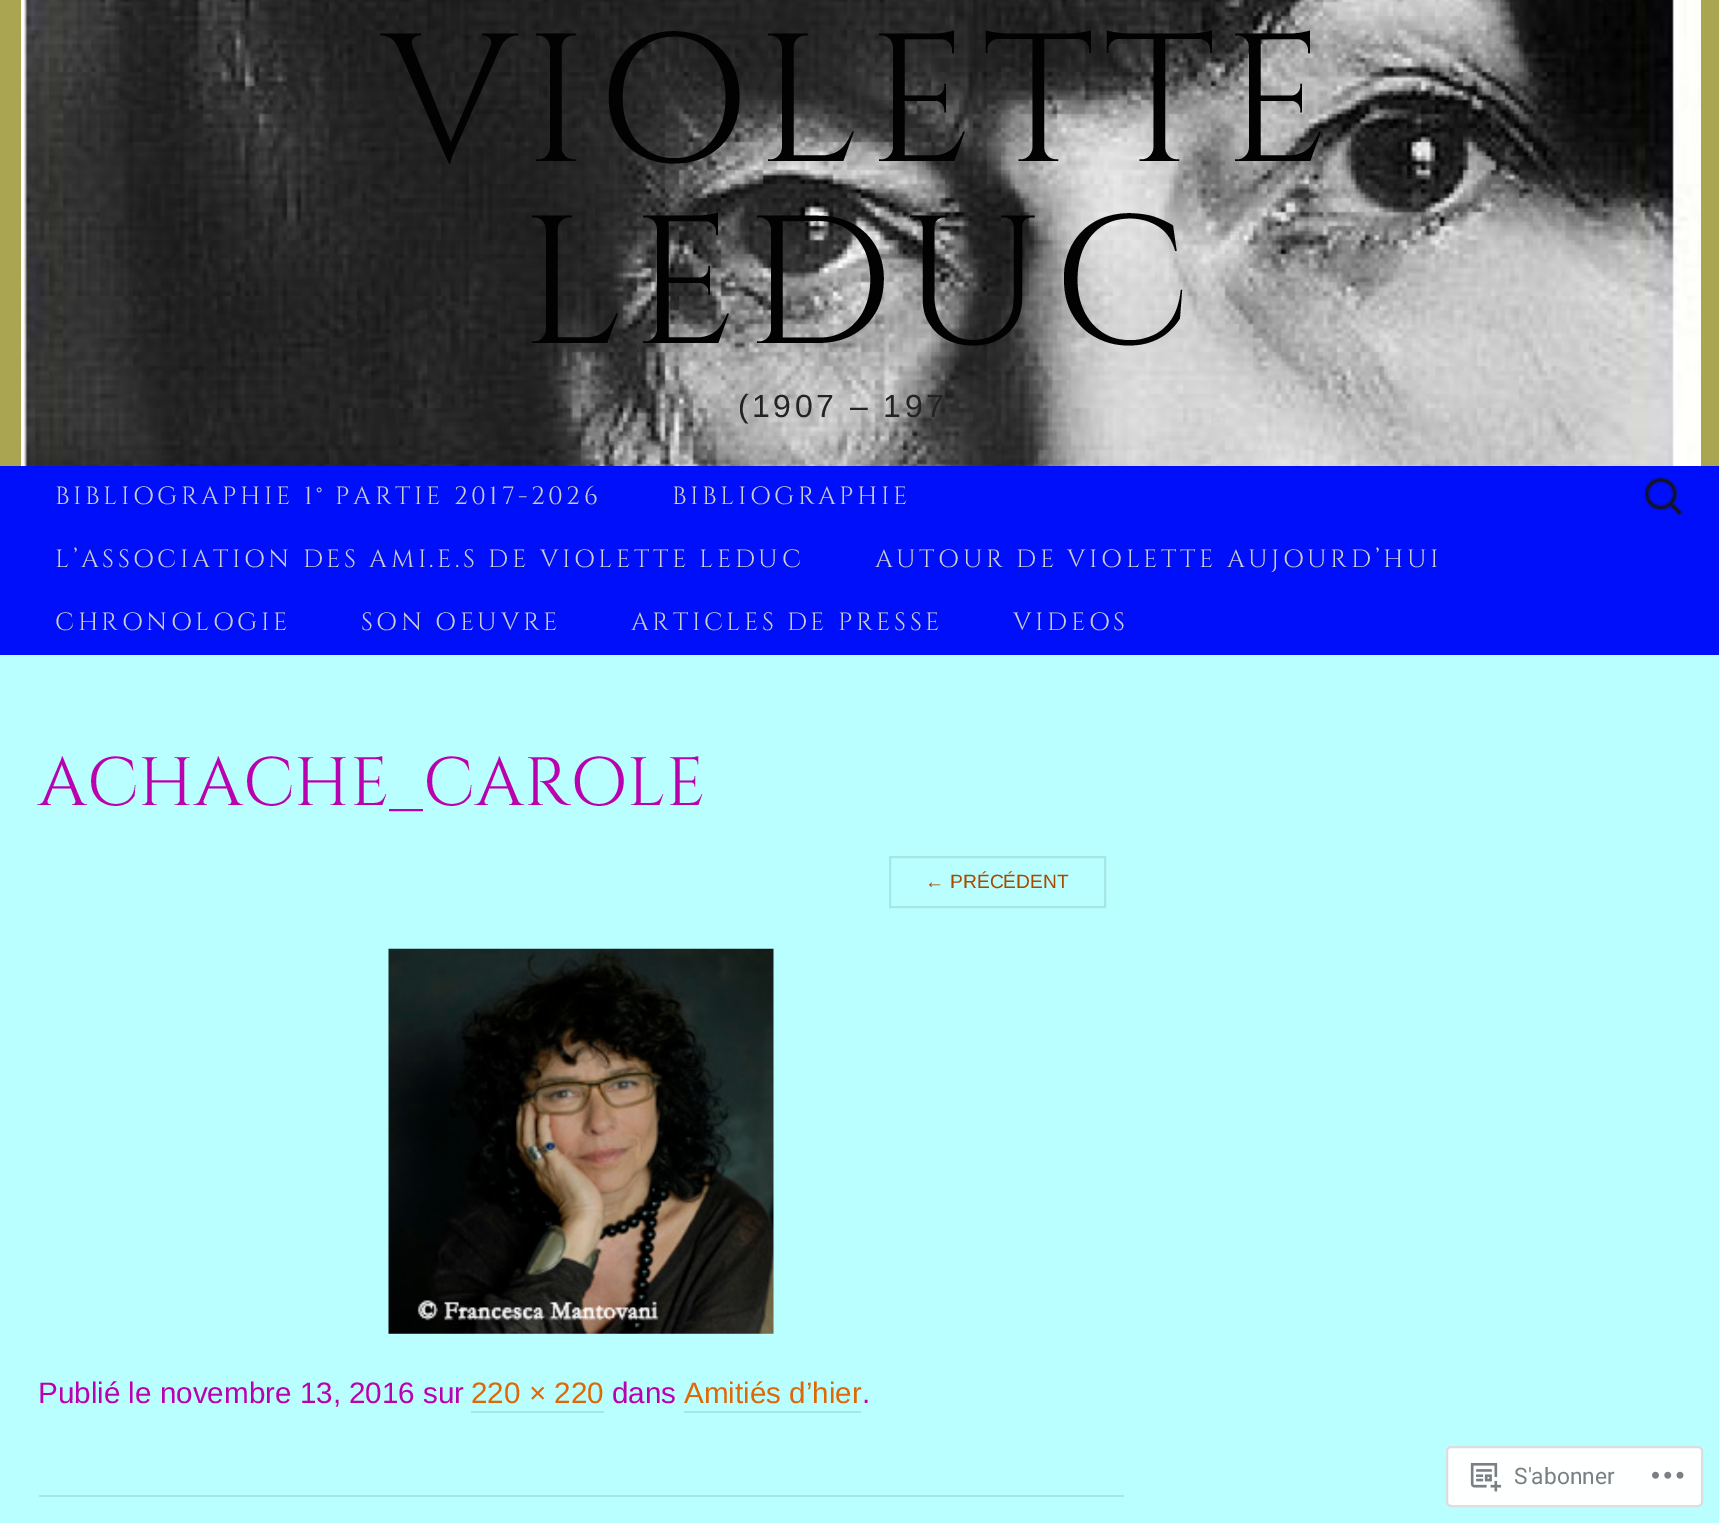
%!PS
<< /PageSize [1719 1523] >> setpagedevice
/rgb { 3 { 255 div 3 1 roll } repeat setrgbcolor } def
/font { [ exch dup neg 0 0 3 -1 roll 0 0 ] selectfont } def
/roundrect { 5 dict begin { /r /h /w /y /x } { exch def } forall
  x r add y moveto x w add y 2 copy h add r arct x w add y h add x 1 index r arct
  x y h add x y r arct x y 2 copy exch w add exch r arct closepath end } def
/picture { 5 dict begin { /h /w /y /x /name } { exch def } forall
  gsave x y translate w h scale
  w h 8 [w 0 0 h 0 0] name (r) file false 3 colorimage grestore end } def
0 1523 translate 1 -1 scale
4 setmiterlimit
186 255 255 rgb
0 0 1719 1523 rectfill
170 165 81 rgb
0 0 1719 466 rectfill
(img/1.rgb) 21 0 1680 466 picture
0 15 249 rgb
0 466 1719 189 rectfill
(img/2.rgb) 1645 477 38 39 picture
167 230 230 rgb
39 1495 1085 2 rectfill
2 setlinewidth
890 857 215 50 rectstroke
773 1155 1 2 rectfill
(img/3.rgb) 388 948 386 386 picture
471 1411 133 2 rectfill
684 1411 177 2 rectfill
254 255 255 rgb
1447 1447 255 59 4 roundrect gsave fill grestore
219 221 223 rgb
stroke
(img/4.rgb) 1470 1463 32 29 picture
(img/5.rgb) 1652 1471 32 8 picture
/Cinzel-Regular 182 font
2 2 2 rgb
382 161 moveto 8.75 0 (VIOLETTE) ashow
521 343 moveto 8.75 0 (LEDUC) ashow
/Arimo-Regular 32 font
35 35 35 rgb
738 417 moveto 3.5 0 (\(1907 – 197) ashow
/Cinzel-Regular 25 font
204 204 204 rgb
55 504 moveto 3.5 0 (BIBLIOGRAPHIE 1° PARTIE 2017-2026) ashow
672 504 moveto 3.5 0 (BIBLIOGRAPHIE) ashow
55 567 moveto 3.5 0 (L’ASSOCIATION DES AMI.E.S DE VIOLETTE LEDUC) ashow
875 567 moveto 3.5 0 (AUTOUR DE VIOLETTE AUJOURD’HUI) ashow
55 630 moveto 3.5 0 (CHRONOLOGIE) ashow
361 630 moveto 3.5 0 (SON OEUVRE) ashow
631 630 moveto 3.5 0 (ARTICLES DE PRESSE) ashow
1013 630 moveto 3.5 0 (VIDEOS) ashow
/Cinzel-Regular 68.25 font
186 1 174 rgb
38 805 moveto (ACHACHE_CAROLE) show
/LiberationSans-Regular 19.25 font
168 75 0 rgb
925 888 moveto (←) show
/Arimo-Regular 19.25 font
950 888 moveto (PRÉCÉDENT) show
/Arimo-Regular 29.6 font
186 1 174 rgb
38 1403 moveto (Publié le novembre 13, 2016 sur) show
222 103 6 rgb
471 1403 moveto (220 × 220) show
186 1 174 rgb
612 1403 moveto (dans) show
222 103 6 rgb
684 1403 moveto (Amitiés d’hier) show
186 1 174 rgb
862 1403 moveto (.) show
/Roboto-Regular 22.75 font
121 127 133 rgb
1514 1484 moveto (S'abonner) show
showpage
